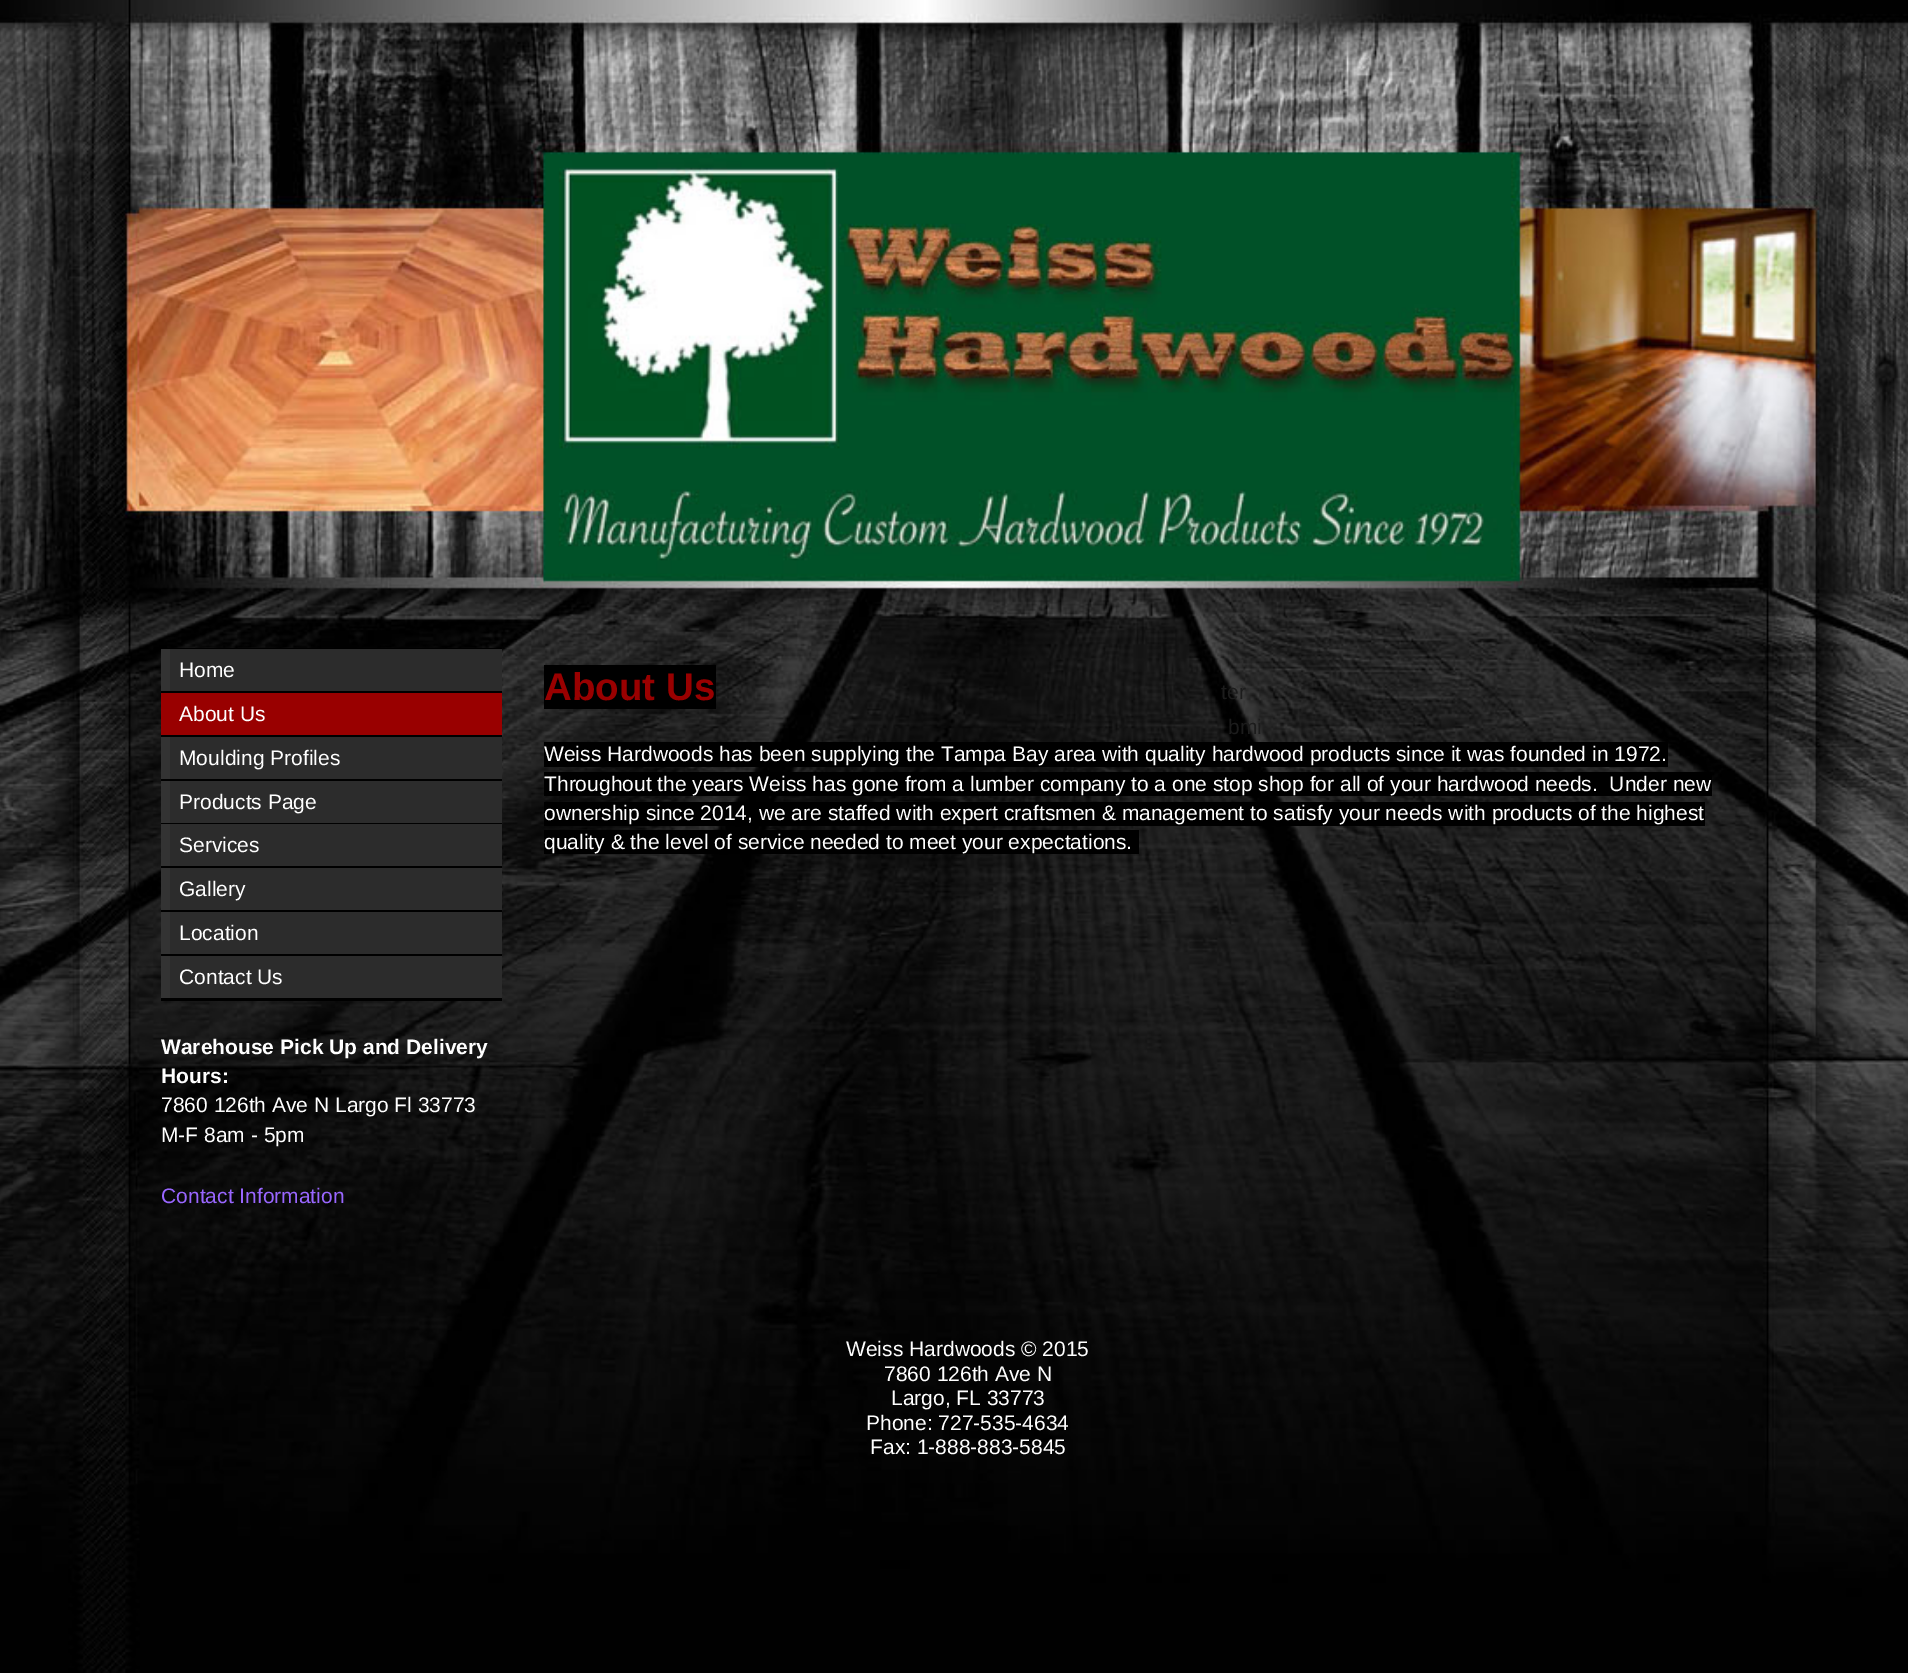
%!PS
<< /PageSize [1908 1673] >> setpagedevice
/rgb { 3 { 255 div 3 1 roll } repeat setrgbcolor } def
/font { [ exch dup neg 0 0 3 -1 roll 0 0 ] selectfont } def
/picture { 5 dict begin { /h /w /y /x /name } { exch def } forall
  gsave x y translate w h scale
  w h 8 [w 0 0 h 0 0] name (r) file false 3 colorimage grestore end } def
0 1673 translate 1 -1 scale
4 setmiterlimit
255 255 255 rgb
0 0 1908 1673 rectfill
(img/1.rgb) 0 0 1908 1673 picture
[
  [161 693 341 42 153 0 0]
  [161 648 341 1 0 0 0]
  [161 691 341 2 0 0 0]
  [170 649 332 42 44 44 44]
  [161 649 9 42 51 51 51]
  [161 735 341 2 0 0 0]
  [161 779 341 2 0 0 0]
  [170 737 332 42 44 44 44]
  [161 737 9 42 51 51 51]
  [161 823 341 1 0 0 0]
  [170 781 332 42 44 44 44]
  [161 781 9 42 51 51 51]
  [161 866 341 2 0 0 0]
  [170 824 332 42 44 44 44]
  [161 824 9 42 51 51 51]
  [161 910 341 2 0 0 0]
  [170 868 332 42 44 44 44]
  [161 868 9 42 51 51 51]
  [161 954 341 2 0 0 0]
  [170 912 332 42 44 44 44]
  [161 912 9 42 51 51 51]
  [161 998 341 3 0 0 0]
  [170 956 332 42 44 44 44]
  [161 956 9 42 51 51 51]
  [544 665 172 44 0 0 0]
  [544 742 1124 25 0 0 0]
  [544 772 1168 24 0 0 0]
  [544 802 1161 24 0 0 0]
  [544 830 595 24 0 0 0]
] { aload pop rgb rectfill } forall
/LiberationSans-Regular 21 font
255 255 255 rgb
[
  [(Home) 179 677]
  [(About Us) 179 721]
  [(Moulding Profiles) 179 765]
  [(Products Page) 179 809]
  [(Services) 179 852]
  [(Gallery) 179 896]
  [(Location) 179 940]
  [(Contact Us) 179 984]
] { aload pop moveto show } forall
/LiberationSans-Bold 21 font
161 1054 moveto (Warehouse Pick Up and Delivery) show
161 1083 moveto (Hours:) show
/LiberationSans-Regular 21 font
161 1112 moveto (7860 126th Ave N Largo Fl 33773) show
161 1142 moveto (M-F 8am - 5pm) show
153 102 255 rgb
161 1203 moveto (Contact Information) show
/LiberationSans-Bold 38.5 font
153 0 0 rgb
544 700 moveto (About Us) show
/LiberationSans-Regular 21 font
28 28 28 rgb
1221 699 moveto (ter) show
1228 734 moveto (bmi) show
255 255 255 rgb
[
  [(Weiss Hardwoods has been supplying the Tampa Bay area with quality hardwood products since it was founded in 1972.) 544 761]
  [(Throughout the years Weiss has gone from a lumber company to a one stop shop for all of your hardwood needs.  Under new) 544 791]
  [(ownership since 2014, we are staffed with expert craftsmen & management to satisfy your needs with products of the highest) 544 820]
  [(quality & the level of service needed to meet your expectations.) 544 849]
  [(Weiss Hardwoods © 2015) 846 1356]
  [(7860 126th Ave N) 884 1381]
  [(Largo, FL 33773) 891 1405]
  [(Phone: 727-535-4634) 866 1430]
  [(Fax: 1-888-883-5845) 870 1454]
] { aload pop moveto show } forall
showpage
